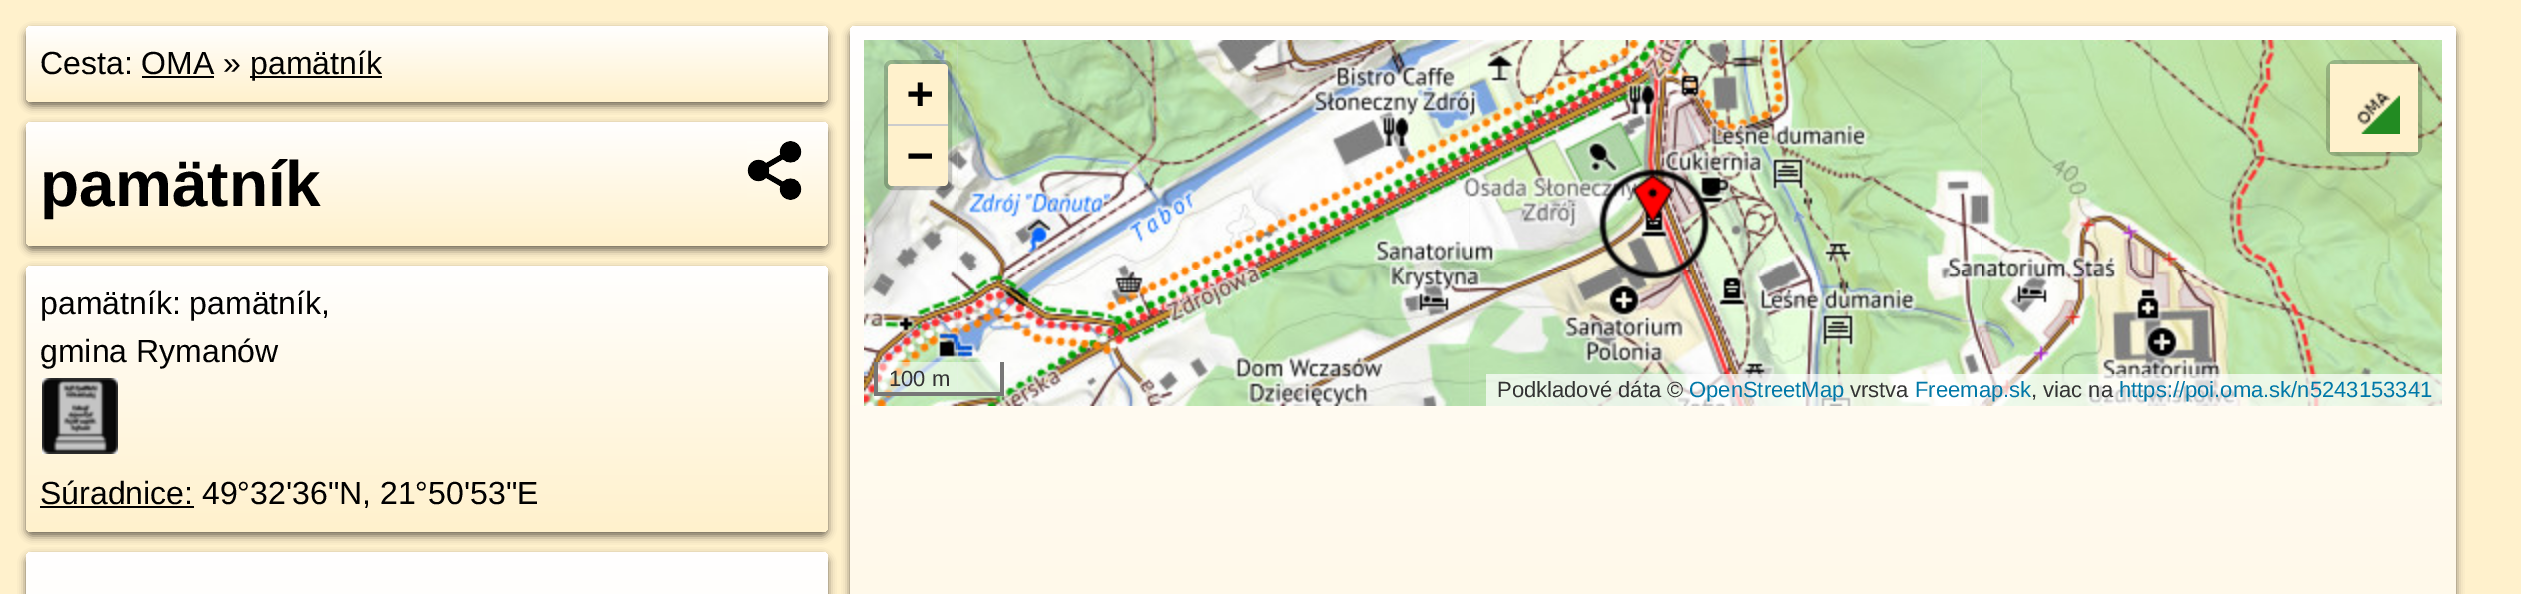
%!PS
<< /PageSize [2521 594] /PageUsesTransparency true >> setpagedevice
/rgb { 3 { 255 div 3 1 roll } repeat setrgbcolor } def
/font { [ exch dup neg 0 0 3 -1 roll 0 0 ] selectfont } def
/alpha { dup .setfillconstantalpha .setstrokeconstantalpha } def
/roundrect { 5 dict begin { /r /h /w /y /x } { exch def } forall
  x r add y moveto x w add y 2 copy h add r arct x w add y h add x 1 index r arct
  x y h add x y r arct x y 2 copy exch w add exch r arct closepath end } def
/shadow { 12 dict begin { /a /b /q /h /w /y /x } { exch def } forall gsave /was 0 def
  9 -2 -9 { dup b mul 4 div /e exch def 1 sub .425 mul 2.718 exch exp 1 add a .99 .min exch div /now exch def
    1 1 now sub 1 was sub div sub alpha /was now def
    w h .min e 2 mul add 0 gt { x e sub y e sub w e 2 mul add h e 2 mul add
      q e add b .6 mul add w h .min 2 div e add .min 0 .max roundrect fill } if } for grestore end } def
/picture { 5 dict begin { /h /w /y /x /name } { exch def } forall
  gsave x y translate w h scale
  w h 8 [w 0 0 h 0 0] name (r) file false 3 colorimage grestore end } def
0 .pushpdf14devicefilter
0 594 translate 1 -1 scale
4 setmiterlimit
255 241 204 rgb
0 0 2521 594 rectfill
0 0 0 rgb
26 30 802 76 6 4 0.55 shadow
gsave 26 26 802 76 6 roundrect clip newpath
<< /ShadingType 2 /ColorSpace /DeviceRGB /Coords [427 26 427 102] /Extend [true true] /Function << /FunctionType 2 /Domain [0 1] /C0 [1 1 1] /C1 [1 0.945 0.8] /N 1 >> >> shfill grestore
250 76 132 2 rectfill
142 76 72 2 rectfill
26 126 802 124 6 4 0.55 shadow
gsave 26 122 802 124 6 roundrect clip newpath
<< /ShadingType 2 /ColorSpace /DeviceRGB /Coords [427 122 427 246] /Extend [true true] /Function << /FunctionType 2 /Domain [0 1] /C0 [1 1 1] /C1 [1 0.945 0.8] /N 1 >> >> shfill grestore
(img/1.rgb) 747 141 55 59 picture
26 270 802 266 6 4 0.55 shadow
gsave 26 266 802 266 6 roundrect clip newpath
<< /ShadingType 2 /ColorSpace /DeviceRGB /Coords [427 266 427 532] /Extend [true true] /Function << /FunctionType 2 /Domain [0 1] /C0 [1 1 1] /C1 [1 0.945 0.8] /N 1 >> >> shfill grestore
(img/2.rgb) 42 378 76 76 picture
40 506 154 2 rectfill
26 556 802 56 6 4 0.55 shadow
gsave 26 552 802 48 6 roundrect clip newpath
<< /ShadingType 2 /ColorSpace /DeviceRGB /Coords [427 552 427 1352] /Extend [true true] /Function << /FunctionType 2 /Domain [0 1] /C0 [1 1 1] /C1 [1 0.945 0.8] /N 1 >> >> shfill grestore
850 30 1606 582 6 4 0.55 shadow
gsave 850 26 1606 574 6 roundrect clip newpath
<< /ShadingType 2 /ColorSpace /DeviceRGB /Coords [1653 26 1653 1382] /Extend [true true] /Function << /FunctionType 2 /Domain [0 1] /C0 [1 1 1] /C1 [1 0.945 0.8] /N 1 >> >> shfill grestore
(img/4.rgb) 958 40 512 230 picture
(img/3.rgb) 864 40 95 230 picture
(img/5.rgb) 1470 40 512 230 picture
(img/6.rgb) 1982 40 460 230 picture
(img/8.rgb) 958 270 512 136 picture
(img/7.rgb) 864 270 95 136 picture
(img/9.rgb) 1470 270 512 136 picture
(img/10.rgb) 1982 270 460 136 picture
(img/11.rgb) 1597 167 114 114 picture
(img/12.rgb) 1632 174 42 50 picture
0.2 alpha
4 setlinewidth
886 62 64 126 6 roundrect stroke
1 alpha
255 241 204 rgb
892 64 moveto 944 64 lineto 946 64 948 66 948 68 curveto 948 126 lineto 888 126 lineto 888 68 lineto 888 66 890 64 892 64 curveto closepath fill
204 204 204 rgb
888 124 60 2 rectfill
255 241 204 rgb
888 126 moveto 948 126 lineto 948 182 lineto 948 184 946 186 944 186 curveto 892 186 lineto 890 186 888 184 888 182 curveto closepath fill
0.2 alpha
0 0 0 rgb
2328 62 92 92 8 roundrect stroke
1 alpha
255 241 204 rgb
2330 64 88 88 rectfill
(img/13.rgb) 2357 91 43 43 picture
0.5 alpha
[
  [878 362 122 30 255 255 255]
] { aload pop rgb rectfill } forall
1 alpha
[
  [1000 362 4 34 119 119 119]
  [874 392 130 4 119 119 119]
  [874 362 4 34 119 119 119]
] { aload pop rgb rectfill } forall
0.7 alpha
[
  [1486 374 956 32 255 255 255]
] { aload pop rgb rectfill } forall
/LiberationSans-Regular 32 font
1 alpha
0 0 0 rgb
40 74 moveto (Cesta: OMA ») show
250 74 moveto (pamätník) show
/LiberationSans-Bold 64 font
40 206 moveto (pamätník) show
/LiberationSans-Regular 32 font
[
  [(pamätník: pamätník,) 40 314]
  [(gmina Rymanów) 40 362]
  [(Súradnice: 49°32'36"N, 21°50'53"E) 40 504]
] { aload pop moveto show } forall
/DejaVuSansMono-Bold 44 font
907 108 moveto (+) show
907 170 moveto (−) show
/LiberationSans-Regular 22 font
51 51 51 rgb
889 386 moveto (100 m) show
1497 397 moveto (Podkladové dáta ©) show
0 120 168 rgb
1689 397 moveto (OpenStreetMap) show
51 51 51 rgb
1850 397 moveto (vrstva) show
0 120 168 rgb
1915 397 moveto (Freemap.sk) show
51 51 51 rgb
2031 397 moveto (, viac na) show
0 120 168 rgb
2119 397 moveto (https://poi.oma.sk/n5243153341) show
.poppdf14devicefilter showpage
